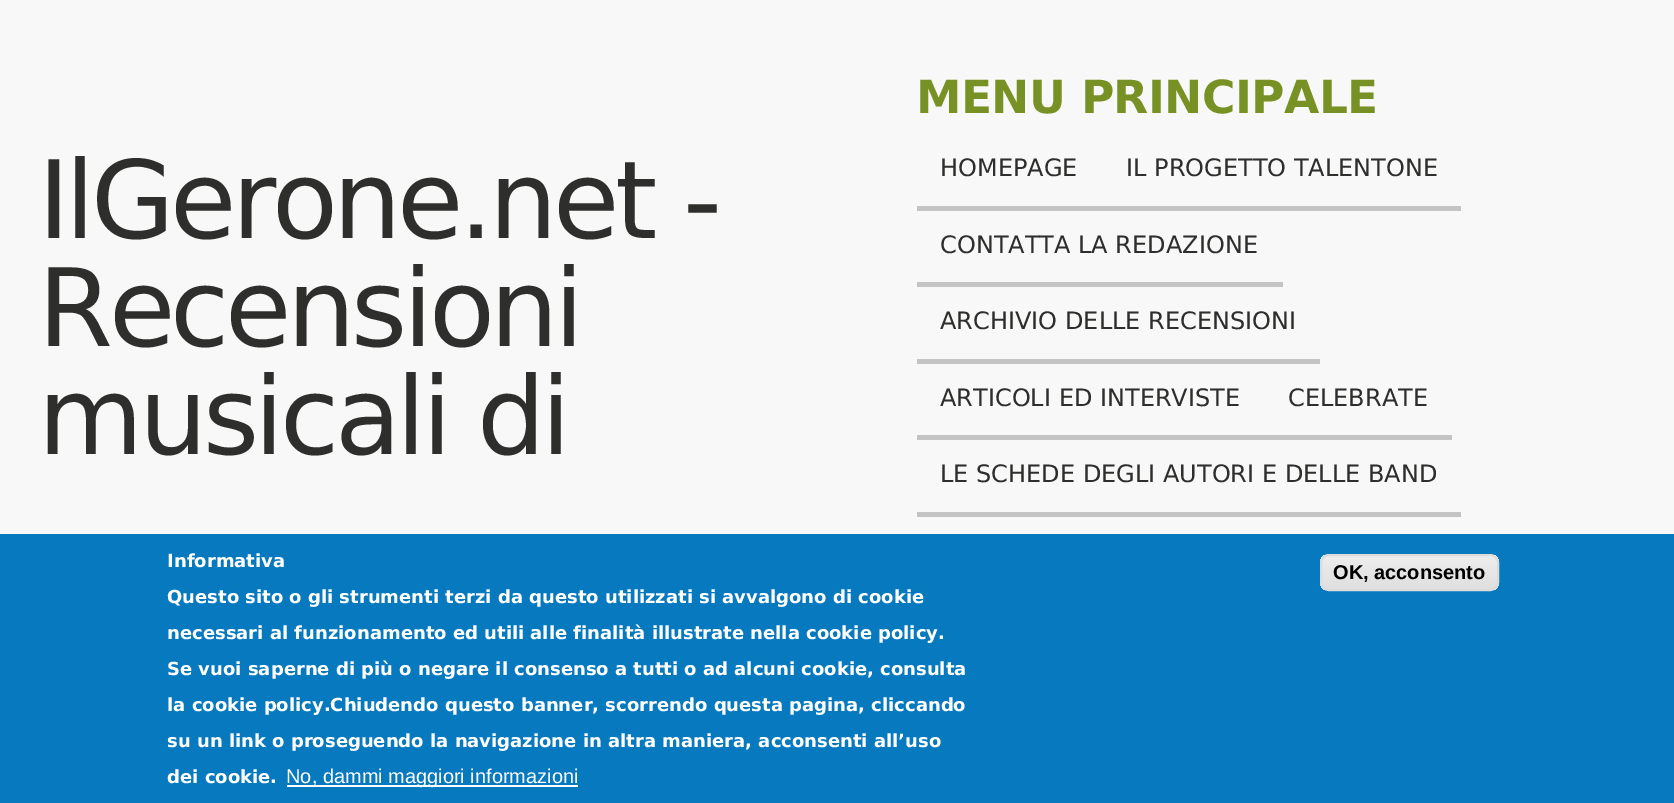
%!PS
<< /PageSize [1674 803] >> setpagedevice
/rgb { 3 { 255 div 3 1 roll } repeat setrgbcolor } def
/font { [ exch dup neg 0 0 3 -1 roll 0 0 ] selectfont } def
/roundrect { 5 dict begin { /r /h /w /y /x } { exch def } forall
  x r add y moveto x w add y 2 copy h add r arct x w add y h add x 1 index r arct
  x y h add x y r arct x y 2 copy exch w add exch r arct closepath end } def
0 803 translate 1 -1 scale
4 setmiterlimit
248 248 248 rgb
0 0 1674 803 rectfill
[
  [917 206 544 5 196 196 196]
  [917 282 366 5 196 196 196]
  [917 359 403 5 196 196 196]
  [917 435 535 5 196 196 196]
  [917 512 544 5 196 196 196]
  [0 534 1674 269 7 121 191]
  [287 785 291 2 255 255 255]
] { aload pop rgb rectfill } forall
gsave
1320 554 179 37 9 roundrect clip newpath
gsave 1320 555 moveto 1499 555 lineto 1499 590 lineto 1320 590 lineto closepath clip newpath
<< /ShadingType 2 /ColorSpace /DeviceRGB /Coords [1409 555 1409 590] /Extend [true true] /Function << /FunctionType 3 /Domain [0 1] /Functions [<< /FunctionType 2 /Domain [0 1] /C0 [0.929 0.929 0.929] /C1 [0.929 0.929 0.929] /N 1 >> << /FunctionType 2 /Domain [0 1] /C0 [0.929 0.929 0.929] /C1 [0.875 0.875 0.875] /N 1 >>] /Bounds [0.05] /Encode [0 1 0 1] >> >> shfill grestore
grestore
220 220 220 rgb
2 setlinewidth
1321 555 177 35 8 roundrect stroke
/DejaVuSans-Regular 108 font
46 46 45 rgb
38 238 moveto -4.5 0 (IlGerone.net -) ashow
38 346 moveto -4.5 0 (Recensioni) ashow
38 454 moveto -4.5 0 (musicali di) ashow
/DejaVuSans-Bold 45.6 font
119 145 37 rgb
916 113 moveto -0.6 0 (MENU PRINCIPALE) ashow
/DejaVuSans-Regular 24 font
46 46 45 rgb
[
  [(HOMEPAGE) 940 176]
  [(IL PROGETTO TALENTONE) 1126 176]
  [(CONTATTA LA REDAZIONE) 940 253]
  [(ARCHIVIO DELLE RECENSIONI) 940 329]
  [(ARTICOLI ED INTERVISTE) 940 406]
  [(CELEBRATE) 1288 406]
  [(LE SCHEDE DEGLI AUTORI E DELLE BAND) 940 482]
] { aload pop moveto show } forall
/DejaVuSans-Bold 18 font
255 255 255 rgb
[
  [(Informativa) 167 567]
  [(Questo sito o gli strumenti terzi da questo utilizzati si avvalgono di cookie) 167 603]
  [(necessari al funzionamento ed utili alle finalità illustrate nella cookie policy.) 167 639]
  [(Se vuoi saperne di più o negare il consenso a tutti o ad alcuni cookie, consulta) 167 675]
  [(la cookie policy.Chiudendo questo banner, scorrendo questa pagina, cliccando) 167 711]
  [(su un link o proseguendo la navigazione in altra maniera, acconsenti all’uso) 167 747]
  [(dei cookie.) 167 783]
] { aload pop moveto show } forall
/LiberationSans-Regular 20 font
286 783 moveto (No, dammi maggiori informazioni) show
/LiberationSans-Bold 20 font
0 0 0 rgb
1333 579 moveto (OK, acconsento) show
showpage
